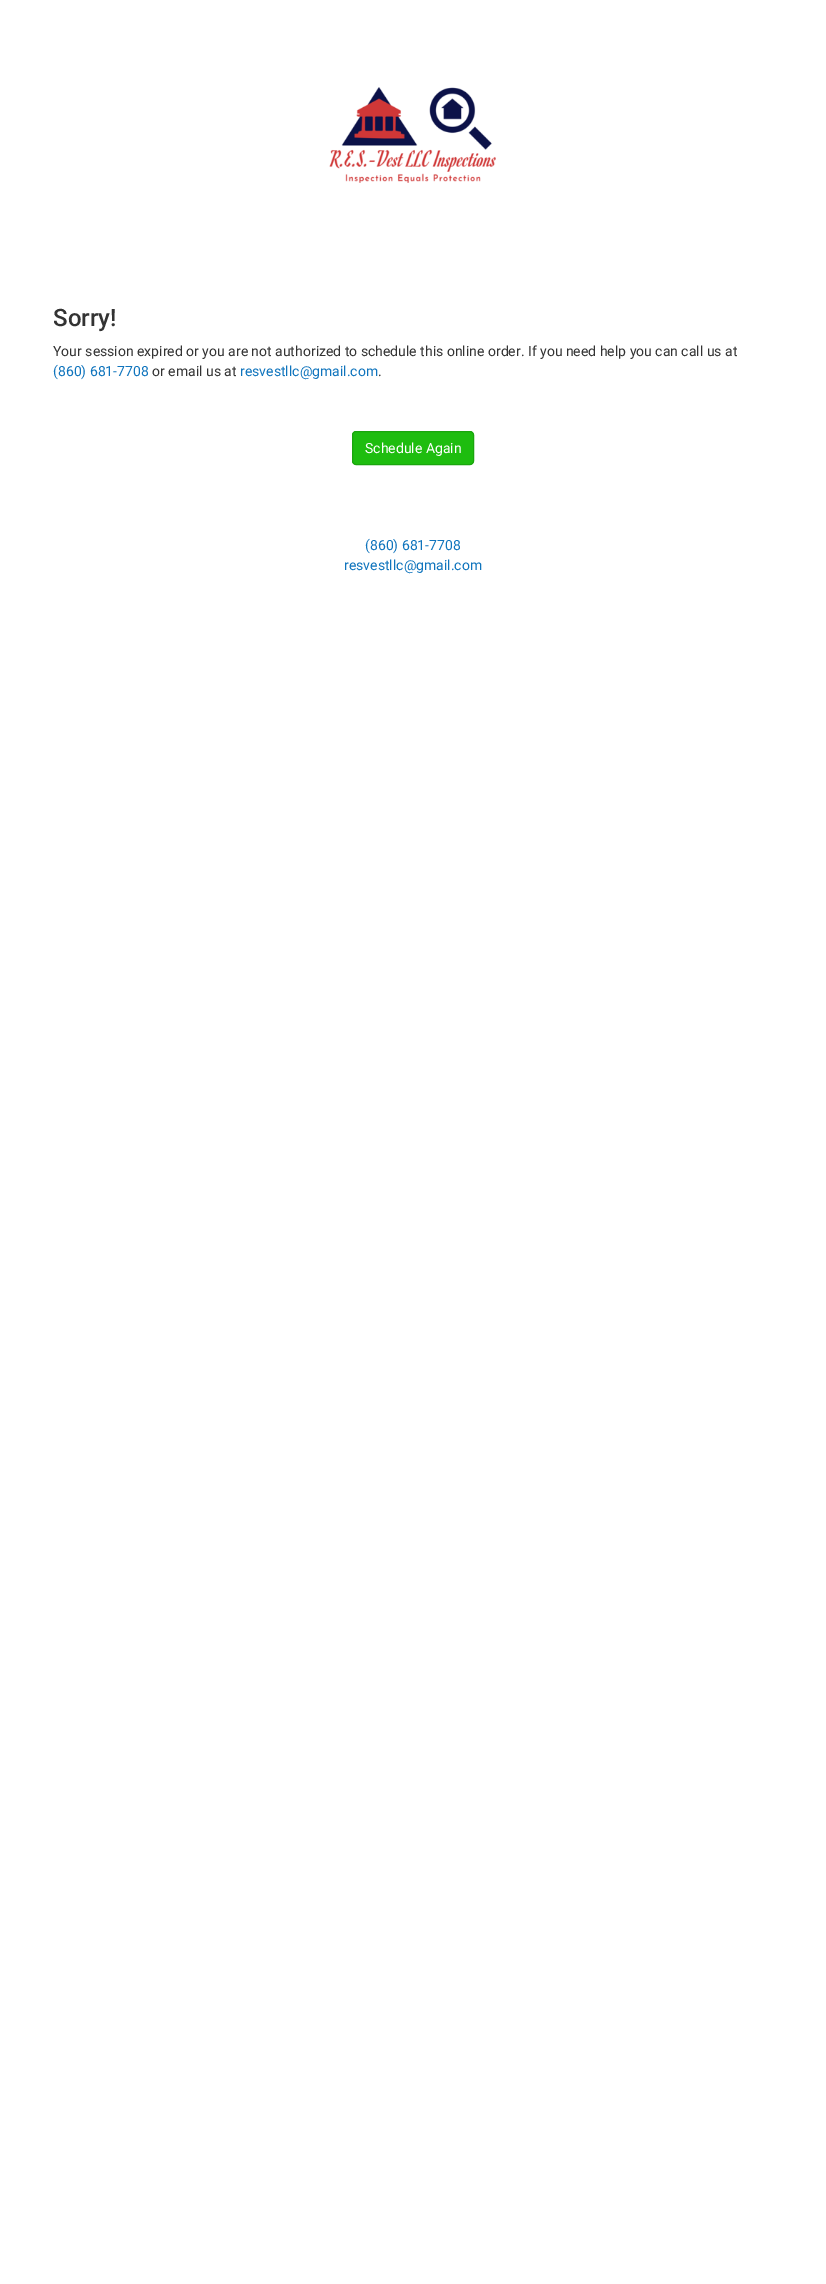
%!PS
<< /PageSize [826 2284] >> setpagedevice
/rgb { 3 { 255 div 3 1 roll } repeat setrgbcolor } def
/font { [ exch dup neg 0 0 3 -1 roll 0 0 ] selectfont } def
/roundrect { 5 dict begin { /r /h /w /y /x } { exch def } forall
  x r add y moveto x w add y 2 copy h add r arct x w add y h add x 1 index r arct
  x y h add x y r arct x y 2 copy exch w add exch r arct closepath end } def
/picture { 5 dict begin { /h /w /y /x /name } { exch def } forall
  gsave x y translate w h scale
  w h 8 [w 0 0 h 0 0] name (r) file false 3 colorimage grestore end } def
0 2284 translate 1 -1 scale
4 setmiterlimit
255 255 255 rgb
0 0 826 2284 rectfill
(img/1.rgb) 329 87 167 96 picture
30 189 15 rgb
352.5 431.5 121 33 3.5 roundrect gsave fill grestore
26 165 13 rgb
stroke
/Roboto-Medium 24 font
51 51 51 rgb
53 326 moveto (Sorry!) show
/Roboto-Regular 14 font
53 356 moveto (Your session expired or you are not authorized to schedule this online order. If you need help you can call us at) show
15 116 189 rgb
53 376 moveto (\(860\) 681-7708) show
51 51 51 rgb
152 376 moveto (or email us at) show
15 116 189 rgb
240 376 moveto (resvestllc@gmail.com) show
51 51 51 rgb
378 376 moveto (.) show
255 255 255 rgb
365 453 moveto (Schedule Again) show
15 116 189 rgb
365 550 moveto (\(860\) 681-7708) show
344 570 moveto (resvestllc@gmail.com) show
showpage
